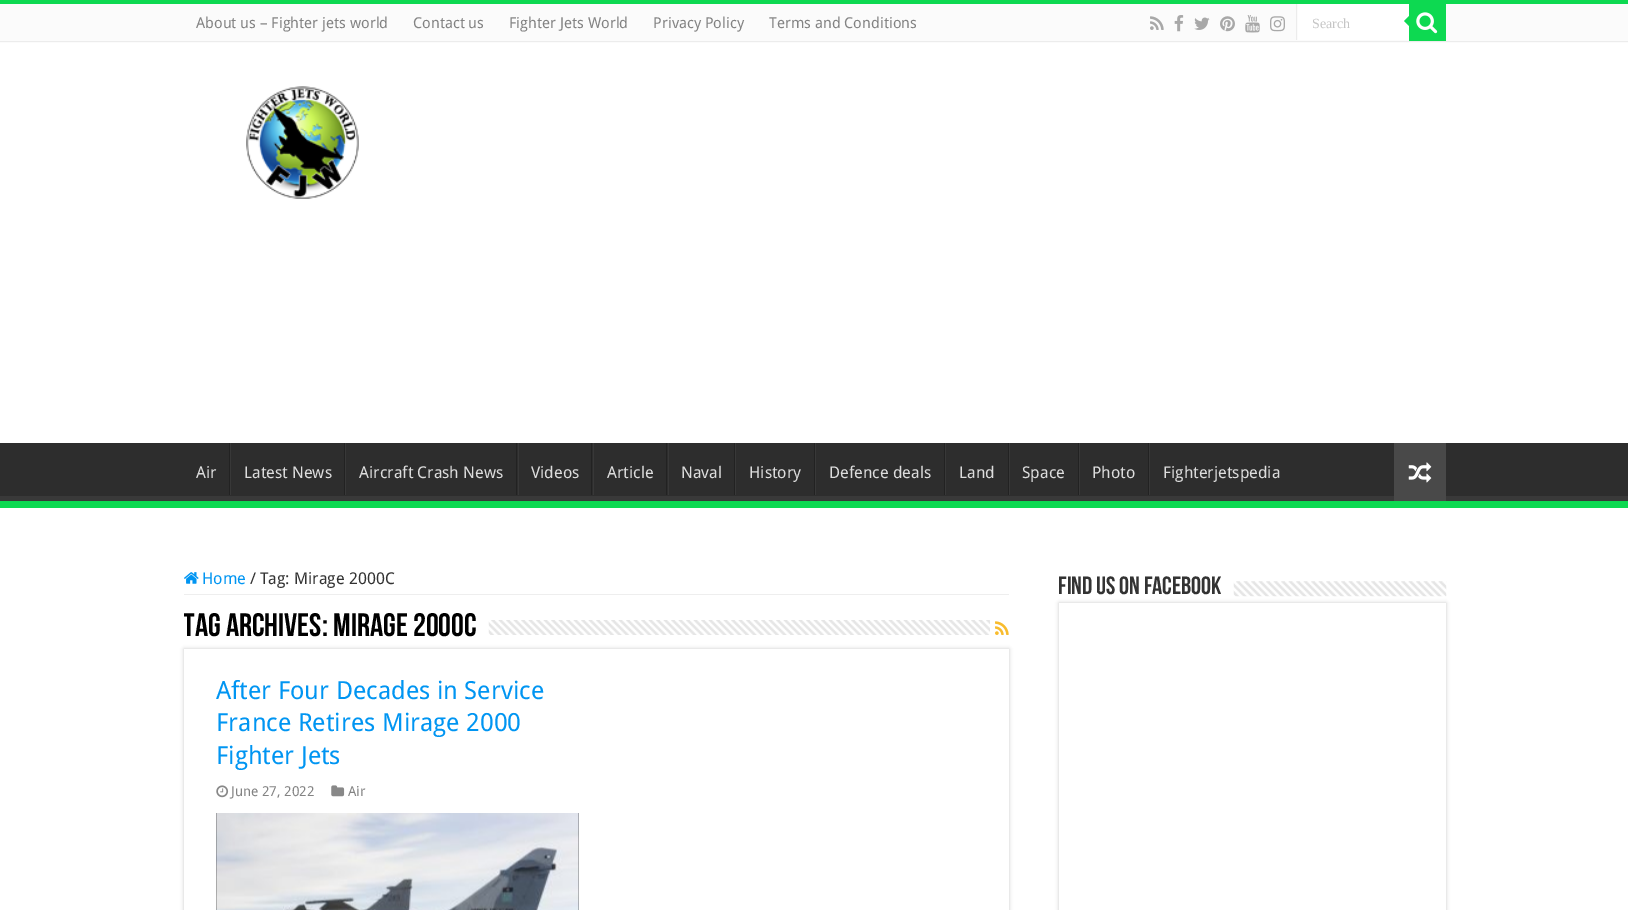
%!PS
<< /PageSize [1628 910] /PageUsesTransparency true >> setpagedevice
/rgb { 3 { 255 div 3 1 roll } repeat setrgbcolor } def
/font { [ exch dup neg 0 0 3 -1 roll 0 0 ] selectfont } def
/alpha { dup .setfillconstantalpha .setstrokeconstantalpha } def
/roundrect { 5 dict begin { /r /h /w /y /x } { exch def } forall
  x r add y moveto x w add y 2 copy h add r arct x w add y h add x 1 index r arct
  x y h add x y r arct x y 2 copy exch w add exch r arct closepath end } def
/shadow { 12 dict begin { /a /b /q /h /w /y /x } { exch def } forall gsave /was 0 def
  9 -2 -9 { dup b mul 4 div /e exch def 1 sub .425 mul 2.718 exch exp 1 add a .99 .min exch div /now exch def
    1 1 now sub 1 was sub div sub alpha /was now def
    w h .min e 2 mul add 0 gt { x e sub y e sub w e 2 mul add h e 2 mul add
      q e add b .6 mul add w h .min 2 div e add .min 0 .max roundrect fill } if } for grestore end } def
/picture { 5 dict begin { /h /w /y /x /name } { exch def } forall
  gsave x y translate w h scale
  w h 8 [w 0 0 h 0 0] name (r) file false 3 colorimage grestore end } def
0 .pushpdf14devicefilter
0 910 translate 1 -1 scale
4 setmiterlimit
255 255 255 rgb
0 0 1628 910 rectfill
[
  [0 0 1628 4 13 217 81]
  [0 4 1628 39 251 251 251]
  [0 41 1628 1 236 236 236]
] { aload pop rgb rectfill } forall
(img/1.rgb) 1150 16 14 14 picture
(img/2.rgb) 1174 15 10 17 picture
(img/3.rgb) 1194 17 16 13 picture
(img/4.rgb) 1220 16 15 16 picture
(img/5.rgb) 1245 15 15 18 picture
(img/6.rgb) 1270 16 15 16 picture
[
  [1298 4 111 36 255 255 255]
  [1296 4 1 36 236 236 236]
  [1409 4 37 37 13 217 81]
] { aload pop rgb rectfill } forall
(img/7.rgb) 1416 12 22 22 picture
1409 16 moveto 1409 26 lineto 1404 21 lineto closepath fill
(img/8.rgb) 246 86 113 113 picture
45 45 45 rgb
0 443 1628 53 rectfill
gsave
0 443 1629 58 rectclip
57 57 57 rgb
-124 319 moveto 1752 319 lineto 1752 625 lineto -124 625 lineto closepath -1 435 moveto 1628 435 lineto 1628 435 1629 436 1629 436 curveto 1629 495 lineto 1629 496 1628 496 1628 496 curveto -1 496 lineto -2 496 -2 496 -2 495 curveto -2 436 lineto -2 436 -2 435 -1 435 curveto closepath eofill
grestore
[
  [0 501 1628 7 13 217 81]
  [229 443 1 52 34 34 34]
  [230 443 1 52 56 56 56]
  [344 443 1 52 34 34 34]
  [345 443 1 52 56 56 56]
  [516 443 1 52 34 34 34]
  [518 443 1 52 56 56 56]
  [591 443 1 52 34 34 34]
  [593 443 1 52 56 56 56]
  [666 443 1 52 34 34 34]
  [668 443 1 52 56 56 56]
  [734 443 1 52 34 34 34]
  [735 443 1 52 56 56 56]
  [814 443 1 52 34 34 34]
  [815 443 1 52 56 56 56]
  [944 443 1 52 34 34 34]
  [945 443 1 52 56 56 56]
  [1008 443 1 52 34 34 34]
  [1009 443 1 52 56 56 56]
  [1078 443 1 52 34 34 34]
  [1079 443 1 52 56 56 56]
  [1148 443 1 52 34 34 34]
  [1149 443 1 52 56 56 56]
  [1394 443 52 58 73 73 73]
] { aload pop rgb rectfill } forall
(img/9.rgb) 1408 462 24 21 picture
238 238 238 rgb
184 594 825 1 rectfill
(img/10.rgb) 184 572 15 12 picture
(img/11.rgb) 488 620 502 15 picture
(img/12.rgb) 995 621 14 14 picture
202 202 202 rgb
184 649 825 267 0 2 1 shadow
255 255 255 rgb
184 649 825 261 rectfill
(img/13.rgb) 216 785 13 13 picture
(img/14.rgb) 331 785 14 12 picture
(img/15.rgb) 216 813 363 97 picture
gsave
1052 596 moveto 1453 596 lineto 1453 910 lineto 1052 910 lineto closepath 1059 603 moveto 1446 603 lineto 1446 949 lineto 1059 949 lineto closepath eoclip newpath
202 202 202 rgb
1059 603 387 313 0 2 1 shadow
grestore
(img/16.rgb) 1233 581 214 16 picture
/DroidSans-Regular 15 font
131 131 131 rgb
[
  [(About us – Fighter jets world) 196 28]
  [(Contact us) 413 28]
  [(Fighter Jets World) 509 28]
  [(Privacy Policy) 653 28]
  [(Terms and Conditions) 769 28]
] { aload pop moveto show } forall
gsave
1313 15 81 15 rectclip
/LiberationSerif-Regular 14 font
197 197 197 rgb
1312 28 moveto (Search) show
grestore
/DroidSans-Regular 16.25 font
221 221 221 rgb
[
  [(Air) 196 478]
  [(Latest News) 244 478]
  [(Aircraft Crash News) 359 478]
  [(Videos) 531 478]
  [(Article) 607 478]
  [(Naval) 681 478]
  [(History) 749 478]
  [(Defence deals) 829 478]
  [(Land) 959 478]
  [(Space) 1022 478]
  [(Photo) 1092 478]
  [(Fighterjetspedia) 1163 478]
] { aload pop moveto show } forall
0 149 242 rgb
202 584 moveto (Home) show
51 51 51 rgb
250 584 moveto (/) show
260 584 moveto (Tag: Mirage 2000C) show
gsave
184 608 825 41 rectclip
/BebasNeue-Bold 32.5 font
0 0 0 rgb
183 636 moveto (Tag Archives:) show
grestore
/BebasNeue-Bold 32.5 font
0 0 0 rgb
333 636 moveto (Mirage 2000C) show
/DroidSans-Regular 25 font
0 149 242 rgb
[
  [(After Four Decades in Service) 216 699]
  [(France Retires Mirage 2000) 216 731]
  [(Fighter Jets) 216 764]
] { aload pop moveto show } forall
/DroidSans-Regular 13.75 font
131 131 131 rgb
231 796 moveto (June 27, 2022) show
348 796 moveto (Air) show
/BebasNeue-Bold 25 font
51 51 51 rgb
1058 594 moveto (Find us on Facebook) show
.poppdf14devicefilter showpage
